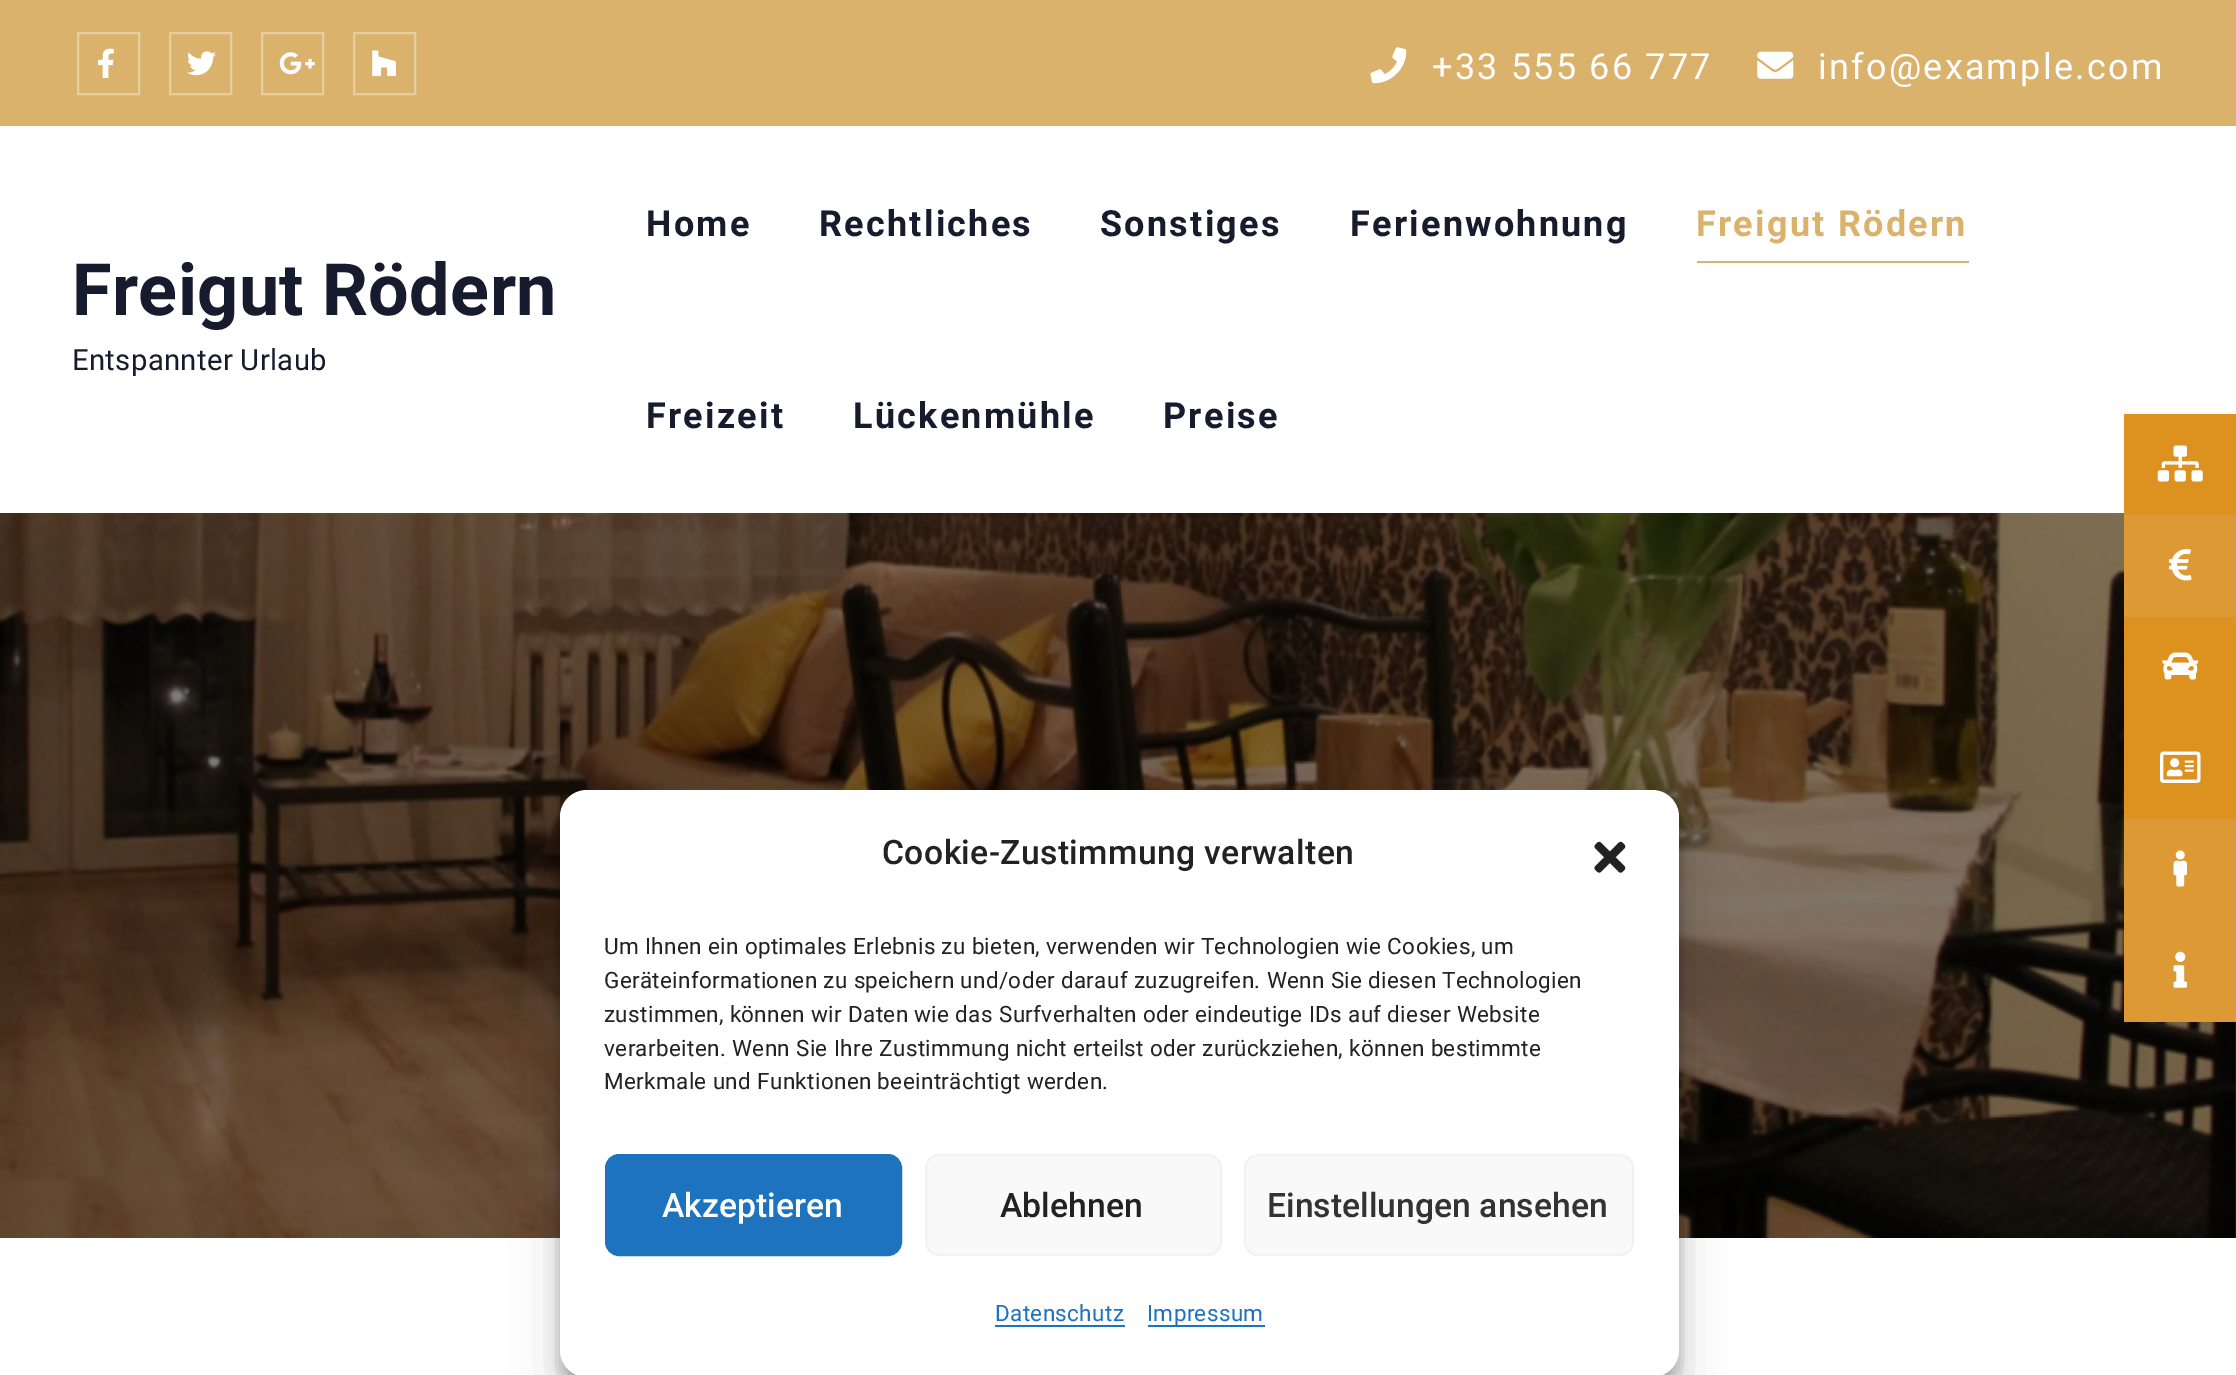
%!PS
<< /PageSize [2236 1375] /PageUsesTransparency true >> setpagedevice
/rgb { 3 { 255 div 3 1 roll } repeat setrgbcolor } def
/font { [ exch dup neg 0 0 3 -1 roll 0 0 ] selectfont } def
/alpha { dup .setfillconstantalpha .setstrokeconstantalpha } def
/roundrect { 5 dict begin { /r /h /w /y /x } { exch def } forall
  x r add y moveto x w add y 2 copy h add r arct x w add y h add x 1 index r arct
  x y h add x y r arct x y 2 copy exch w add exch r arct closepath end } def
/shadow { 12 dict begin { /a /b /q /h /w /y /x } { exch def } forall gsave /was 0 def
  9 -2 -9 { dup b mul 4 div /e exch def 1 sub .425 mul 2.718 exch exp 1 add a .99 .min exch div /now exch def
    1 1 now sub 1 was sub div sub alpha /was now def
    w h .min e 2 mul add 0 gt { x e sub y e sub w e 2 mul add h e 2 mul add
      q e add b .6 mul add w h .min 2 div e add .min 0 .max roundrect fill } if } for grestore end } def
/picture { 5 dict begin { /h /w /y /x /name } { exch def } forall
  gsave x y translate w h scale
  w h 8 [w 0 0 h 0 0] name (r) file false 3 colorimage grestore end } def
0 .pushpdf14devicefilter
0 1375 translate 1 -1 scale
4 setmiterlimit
255 255 255 rgb
0 0 2236 1375 rectfill
218 178 108 rgb
0 0 2236 126 rectfill
231 206 161 rgb
2 setlinewidth
78 33 61 61 rectstroke
(img/1.rgb) 98 48 16 30 picture
170 33 61 61 rectstroke
(img/2.rgb) 187 51 29 25 picture
262 33 61 61 rectstroke
(img/3.rgb) 279 52 36 23 picture
354 33 61 61 rectstroke
(img/4.rgb) 372 50 24 27 picture
(img/5.rgb) 1370 47 37 37 picture
(img/6.rgb) 1757 51 37 28 picture
218 178 108 rgb
1697 261 272 2 rectfill
(img/7.rgb) 0 513 2236 725 picture
221 145 31 rgb
2124 414 112 101 rectfill
(img/8.rgb) 2157 445 46 37 picture
221 153 51 rgb
2124 515 112 102 rectfill
(img/9.rgb) 2169 549 23 32 picture
221 145 31 rgb
2124 617 112 202 rectfill
(img/10.rgb) 2162 652 37 28 picture
(img/11.rgb) 2160 751 41 32 picture
221 153 51 rgb
2124 819 112 203 rectfill
(img/12.rgb) 2173 850 14 37 picture
(img/13.rgb) 2173 951 14 37 picture
0 0 0 rgb
560 803 1119 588 27 7 0.23 shadow
560 812 1119 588 27 22.5 0.19 shadow
255 255 255 rgb
560 790 1119 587 27 roundrect fill
(img/14.rgb) 1594 841 32 32 picture
30 115 190 rgb
606 1155 295 100 13 roundrect gsave fill grestore
stroke
249 249 249 rgb
926 1155 295 100 13 roundrect gsave fill grestore
242 242 242 rgb
stroke
249 249 249 rgb
1245 1155 388 100 13 roundrect gsave fill grestore
242 242 242 rgb
stroke
30 115 190 rgb
995 1325 130 2 rectfill
1148 1325 117 2 rectfill
/Roboto-Regular 36 font
255 255 255 rgb
1432 79 moveto 2.25 0 (+33 555 66 777) ashow
1818 79 moveto 2.25 0 (info@example.com) ashow
/Roboto-Bold 72 font
22 28 45 rgb
72 315 moveto 0.35 0 (Freigut Rödern) ashow
/Roboto-Regular 29.25 font
72 370 moveto 0.35 0 (Entspannter Urlaub) ashow
/Roboto-Bold 36 font
646 236 moveto 2.25 0 (Home) ashow
819 236 moveto 2.25 0 (Rechtliches) ashow
1100 236 moveto 2.25 0 (Sonstiges) ashow
1350 236 moveto 2.25 0 (Ferienwohnung) ashow
218 178 108 rgb
1696 236 moveto 2.25 0 (Freigut Rödern) ashow
22 28 45 rgb
646 428 moveto 2.25 0 (Freizeit) ashow
853 428 moveto 2.25 0 (Lückenmühle) ashow
1163 428 moveto 2.25 0 (Preise) ashow
/Roboto-Medium 33.75 font
34 34 34 rgb
882 864 moveto 0.35 0 (Cookie-Zustimmung verwalten) ashow
/Roboto-Regular 22.5 font
604 954 moveto 0.35 0 (Um Ihnen ein optimales Erlebnis zu bieten, verwenden wir Technologien wie Cookies, um) ashow
604 988 moveto 0.35 0 (Geräteinformationen zu speichern und/oder darauf zuzugreifen. Wenn Sie diesen Technologien) ashow
604 1022 moveto 0.35 0 (zustimmen, können wir Daten wie das Surfverhalten oder eindeutige IDs auf dieser Website) ashow
604 1056 moveto 0.35 0 (verarbeiten. Wenn Sie Ihre Zustimmung nicht erteilst oder zurückziehen, können bestimmte) ashow
604 1089 moveto 0.35 0 (Merkmale und Funktionen beeinträchtigt werden.) ashow
/Roboto-Medium 33.75 font
255 255 255 rgb
662 1217 moveto (Akzeptieren) show
34 34 34 rgb
1000 1217 moveto (Ablehnen) show
51 51 51 rgb
1267 1217 moveto (Einstellungen ansehen) show
/Roboto-Regular 22.5 font
30 115 190 rgb
995 1321 moveto 0.35 0 (Datenschutz) ashow
1147 1321 moveto 0.35 0 (Impressum) ashow
.poppdf14devicefilter showpage
